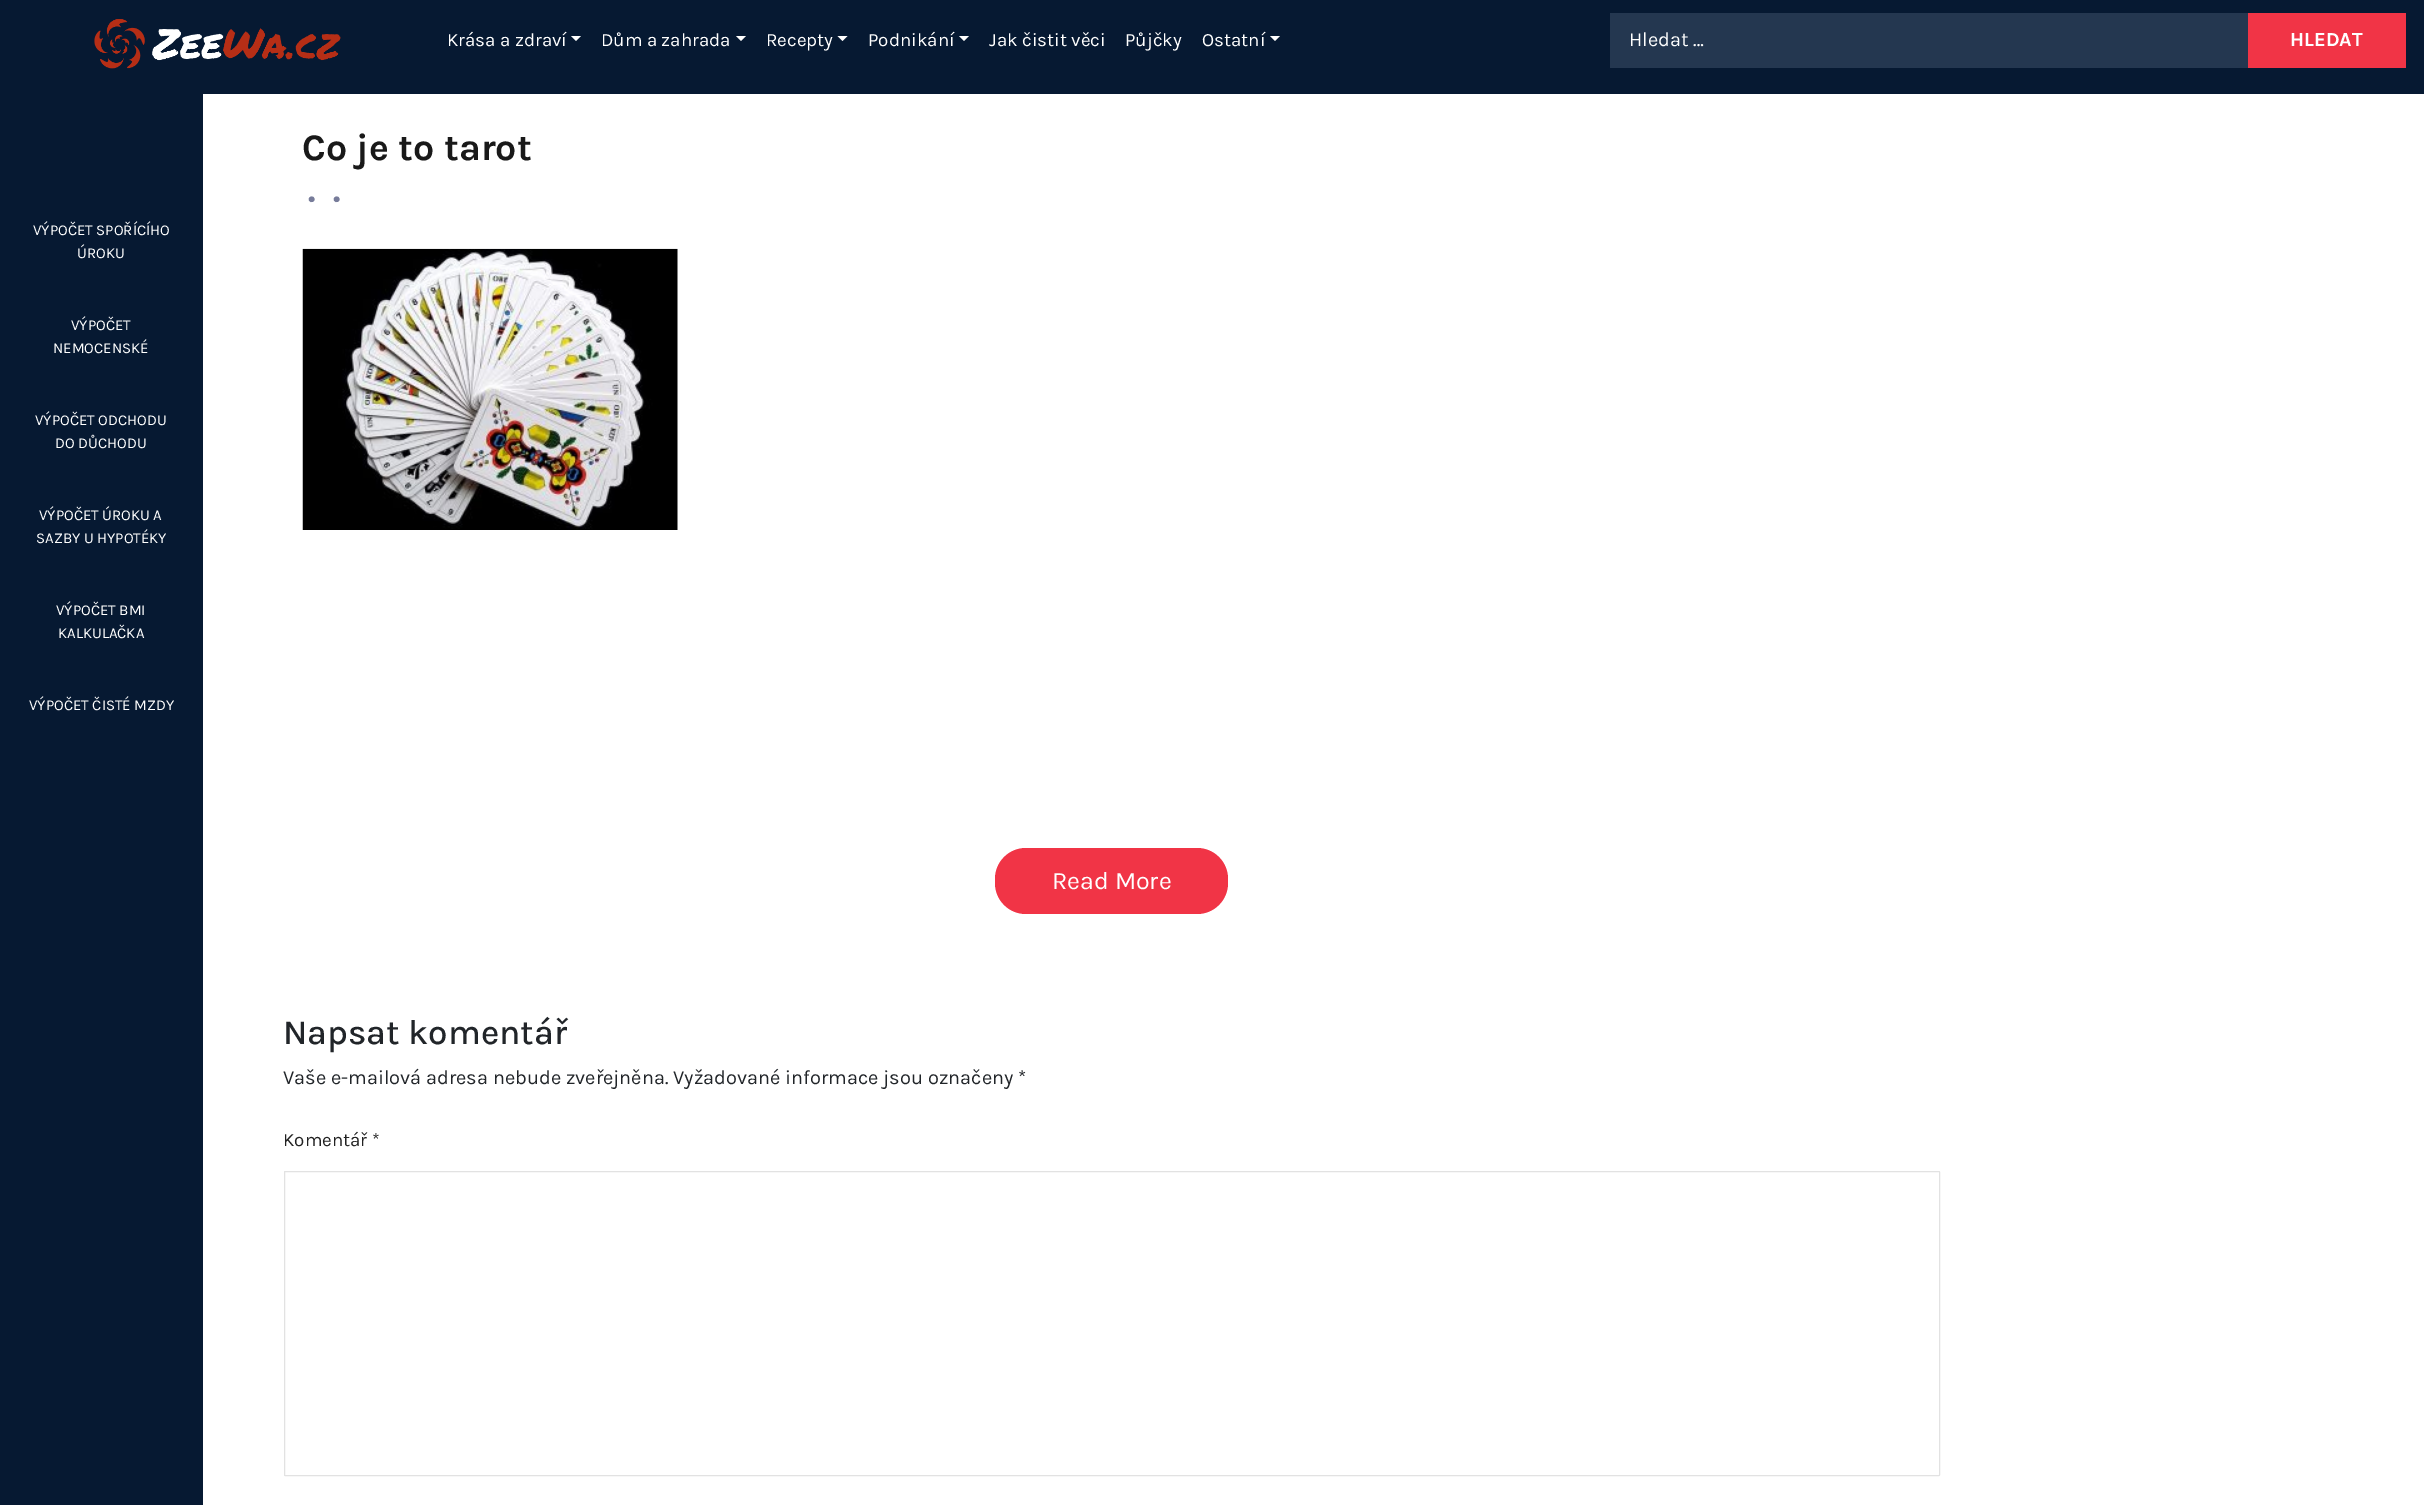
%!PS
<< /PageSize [2424 1505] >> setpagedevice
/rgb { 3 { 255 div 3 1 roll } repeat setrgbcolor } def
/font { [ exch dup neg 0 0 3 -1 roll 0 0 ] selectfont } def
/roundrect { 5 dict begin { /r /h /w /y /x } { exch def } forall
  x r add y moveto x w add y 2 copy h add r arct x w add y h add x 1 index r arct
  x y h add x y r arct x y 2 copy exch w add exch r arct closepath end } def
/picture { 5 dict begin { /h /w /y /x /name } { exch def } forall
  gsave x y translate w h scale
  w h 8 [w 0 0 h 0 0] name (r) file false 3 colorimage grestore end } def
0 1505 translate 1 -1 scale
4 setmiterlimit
255 255 255 rgb
0 0 2424 1505 rectfill
6 25 50 rgb
0 0 2424 94 rectfill
(img/1.rgb) 94 19 247 50 picture
255 255 255 rgb
571 36 moveto 581 36 lineto 576 41 lineto closepath fill
736 36 moveto 746 36 lineto 741 41 lineto closepath fill
837.5 36 moveto 847.5 36 lineto 842.5 41 lineto closepath fill
959 36 moveto 969 36 lineto 964 41 lineto closepath fill
1270 36 moveto 1280 36 lineto 1275 41 lineto closepath fill
[
  [1610 13 638 55 36 55 80]
  [2248 13 158 55 241 52 70]
  [0 94 203 1411 6 25 50]
] { aload pop rgb rectfill } forall
(img/2.rgb) 302 248 376 282 picture
241 52 70 rgb
995 848 233 66 31 roundrect fill
226 226 226 rgb
284.5 1171.5 1655 304 0.5 roundrect stroke
/Karla-Regular 18.75 font
255 255 255 rgb
[
  [(Krása a zdraví) 447 46]
  [(Dům a zahrada) 601 46]
  [(Recepty) 766 46]
  [(Podnikání) 868 46]
  [(Jak čistit věci) 989 46]
  [(Půjčky) 1125 46]
  [(Ostatní) 1202 46]
] { aload pop moveto show } forall
/Karla-Regular 20 font
1629 46 moveto (Hledat …) show
/Karla-Bold 20 font
2290 46 moveto (HLEDAT) show
/Karla-Regular 15 font
[
  [(VÝPOČET SPOŘÍCÍHO) 33 235]
  [(ÚROKU) 77 258]
  [(VÝPOČET) 71 330]
  [(NEMOCENSKÉ) 53 353]
  [(VÝPOČET ODCHODU) 35 425]
  [(DO DŮCHODU) 55 448]
  [(VÝPOČET ÚROKU A) 39 520]
  [(SAZBY U HYPOTÉKY) 36 543]
  [(VÝPOČET BMI) 56 615]
  [(KALKULAČKA) 58 638]
  [(VÝPOČET ČISTÉ MZDY) 29 710]
] { aload pop moveto show } forall
/Karla-Bold 37.5 font
25 25 25 rgb
302 160 moveto (Co je to tarot) show
/Karla-Medium 25 font
119 124 154 rgb
308 206 moveto (•) show
333 206 moveto (•) show
/Karla-Regular 25 font
255 255 255 rgb
1052 889 moveto (Read More) show
/Karla-Medium 35 font
33 37 41 rgb
283 1044 moveto (Napsat komentář) show
/Karla-Regular 20 font
283 1084 moveto (Vaše e-mailová adresa nebude zveřejněna. Vyžadované informace jsou označeny *) show
/Karla-Regular 18.75 font
34 34 34 rgb
283 1146 moveto (Komentář *) show
showpage
